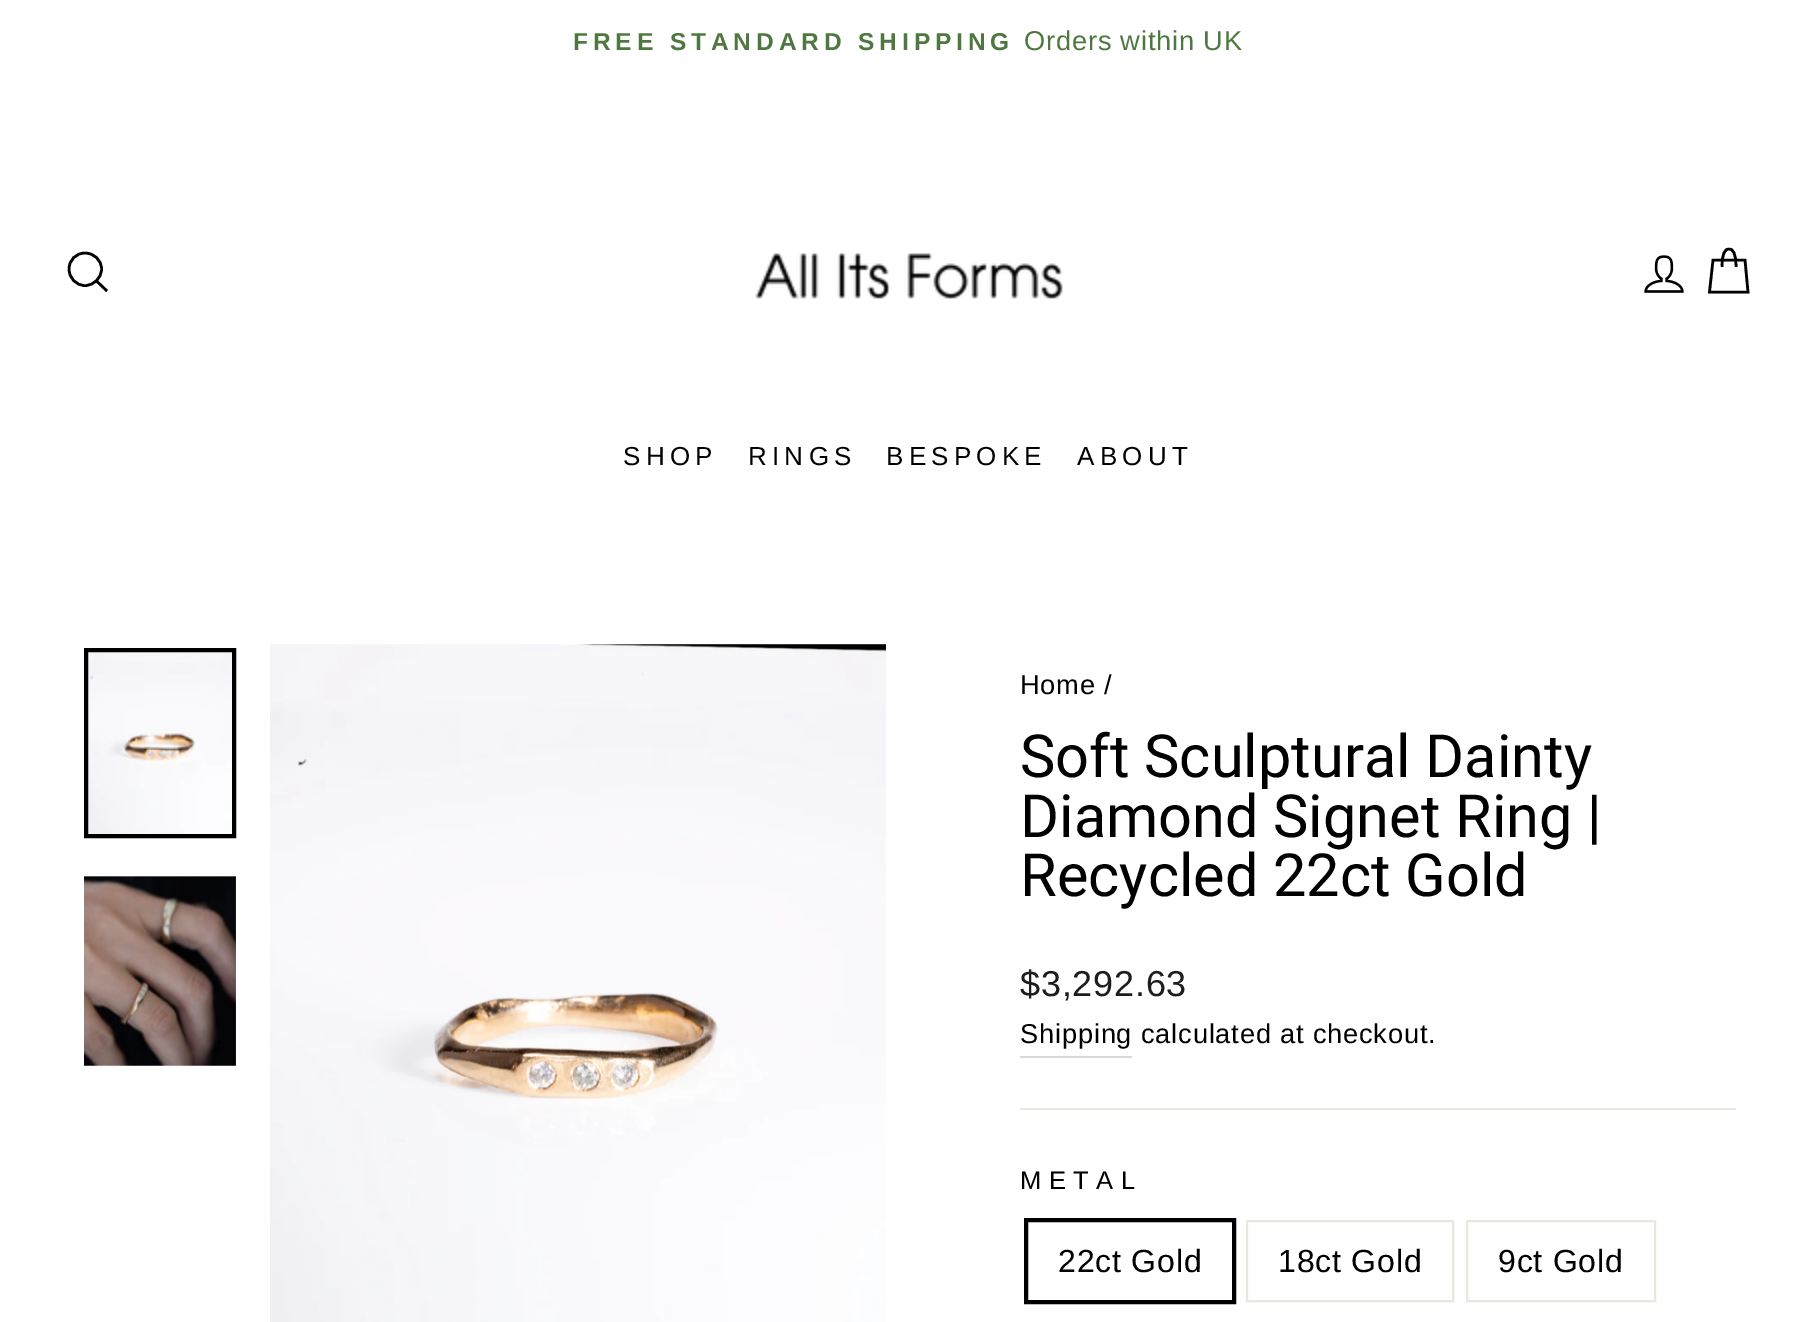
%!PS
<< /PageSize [1816 1322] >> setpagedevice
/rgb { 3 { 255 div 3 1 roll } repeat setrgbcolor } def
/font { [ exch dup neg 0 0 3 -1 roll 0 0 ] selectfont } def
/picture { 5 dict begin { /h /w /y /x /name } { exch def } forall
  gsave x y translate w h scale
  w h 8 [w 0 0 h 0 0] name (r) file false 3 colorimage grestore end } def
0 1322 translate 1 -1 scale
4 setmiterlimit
255 255 255 rgb
0 0 1816 1322 rectfill
0 0 0 rgb
2.6 setlinewidth
101.5 269 moveto 101.5 278 94 285.5 85 285.5 curveto 76 285.5 69 278 69 269 curveto 69 260 76 253 85 253 curveto 94 253 101.5 260 101.5 269 curveto closepath 107 291 moveto 96.5 281 lineto stroke
(img/1.rgb) 755 253 308 47 picture
(img/2.rgb) 1644 255 40 38 picture
1722 267 moveto 1722 253 1725 249 1729 249 curveto 1733 249 1736 253 1736 267 curveto 1713 260 moveto 1745 260 lineto 1748 292 lineto 1709.5 292 lineto closepath stroke
(img/3.rgb) 88 652 144 182 picture
4 setlinewidth
86 650 148 186 rectstroke
(img/4.rgb) 84 876 152 190 picture
(img/5.rgb) 270 644 616 678 picture
217 217 217 rgb
1020 1056 112 2 rectfill
232 232 225 rgb
1020 1108 716 2 rectfill
0 0 0 rgb
1026 1220 208 82 rectstroke
232 232 225 rgb
2 setlinewidth
1247 1221 206 80 rectstroke
1467 1221 188 80 rectstroke
/LiberationSans-Bold 24.5 font
78 120 64 rgb
573 50 moveto 4.9 0 (FREE STANDARD SHIPPING) ashow
/LiberationSans-Regular 27.25 font
1024 50 moveto 0.8 0 (Orders within UK) ashow
/LiberationSans-Regular 26 font
0 0 0 rgb
623 465 moveto 5.25 0 (SHOP) ashow
748 465 moveto 5.25 0 (RINGS) ashow
886 465 moveto 5.25 0 (BESPOKE) ashow
1077 465 moveto 5.25 0 (ABOUT) ashow
/LiberationSans-Regular 27.25 font
1020 694 moveto 0.8 0 (Home /) ashow
/Roboto-Regular 59.5 font
[
  [(Soft Sculptural Dainty) 1020 777]
  [(Diamond Signet Ring |) 1020 837]
  [(Recycled 22ct Gold) 1020 896]
] { aload pop moveto show } forall
/LiberationSans-Regular 36 font
28 29 29 rgb
1020 996 moveto 0.8 0 ($3,292.63) ashow
/LiberationSans-Regular 27.25 font
0 0 0 rgb
1020 1043 moveto 0.8 0 (Shipping) ashow
1141 1043 moveto 0.8 0 (calculated at checkout.) ashow
/LiberationSans-Regular 25.5 font
1020 1189 moveto 7.5 0 (METAL) ashow
/LiberationSans-Regular 32 font
1058 1272 moveto 0.8 0 (22ct Gold) ashow
1278 1272 moveto 0.8 0 (18ct Gold) ashow
1498 1272 moveto 0.8 0 (9ct Gold) ashow
showpage
